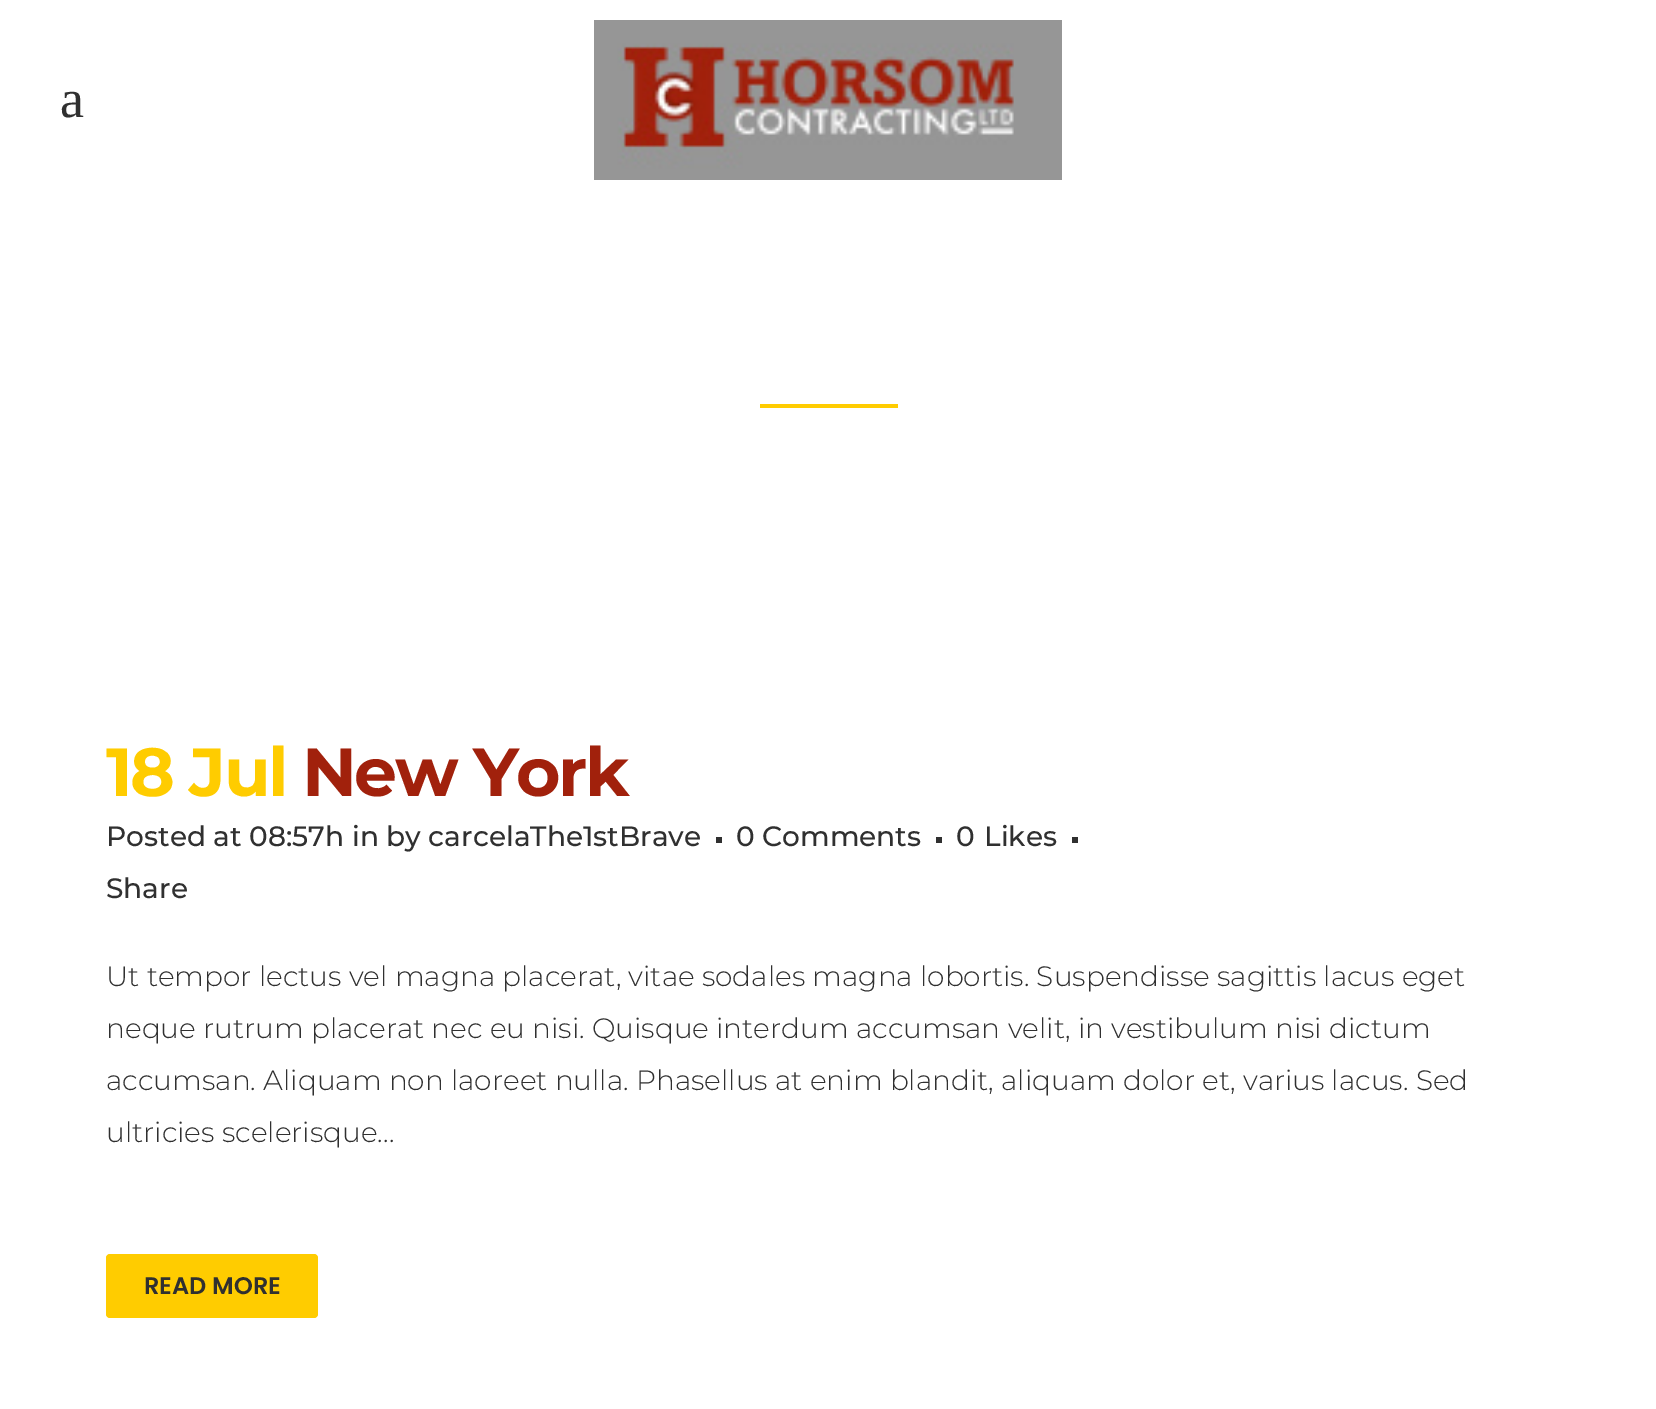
%!PS
<< /PageSize [1656 1409] >> setpagedevice
/rgb { 3 { 255 div 3 1 roll } repeat setrgbcolor } def
/font { [ exch dup neg 0 0 3 -1 roll 0 0 ] selectfont } def
/roundrect { 5 dict begin { /r /h /w /y /x } { exch def } forall
  x r add y moveto x w add y 2 copy h add r arct x w add y h add x 1 index r arct
  x y h add x y r arct x y 2 copy exch w add exch r arct closepath end } def
/picture { 5 dict begin { /h /w /y /x /name } { exch def } forall
  gsave x y translate w h scale
  w h 8 [w 0 0 h 0 0] name (r) file false 3 colorimage grestore end } def
0 1409 translate 1 -1 scale
4 setmiterlimit
255 255 255 rgb
0 0 1656 1409 rectfill
(img/1.rgb) 594 20 468 160 picture
[
  [760 404 138 4 255 204 0]
  [716 837 6 6 48 48 48]
  [936 837 6 6 48 48 48]
  [1072 837 6 6 48 48 48]
] { aload pop rgb rectfill } forall
255 204 0 rgb
106 1254 212 64 4 roundrect fill
/LiberationSerif-Regular 54 font
48 48 48 rgb
60 117 moveto (a) show
/Montserrat-Bold 68 font
255 204 0 rgb
106 796 moveto -2.5 0 (18 Jul) ashow
161 33 12 rgb
302 796 moveto -2.5 0 (New York) ashow
/Montserrat-Medium 28 font
48 48 48 rgb
[
  [(Posted at 08:57h in by carcelaThe1stBrave) 106 846]
  [(0 Comments) 736 846]
  [(0) 956 846]
  [(Likes) 984 846]
  [(Share) 106 898]
] { aload pop moveto show } forall
/Montserrat-Light 28 font
[
  [(Ut tempor lectus vel magna placerat, vitae sodales magna lobortis. Suspendisse sagittis lacus eget) 106 986]
  [(neque rutrum placerat nec eu nisi. Quisque interdum accumsan velit, in vestibulum nisi dictum) 106 1038]
  [(accumsan. Aliquam non laoreet nulla. Phasellus at enim blandit, aliquam dolor et, varius lacus. Sed) 106 1090]
  [(ultricies scelerisque...) 106 1142]
] { aload pop moveto show } forall
/Poppins-SemiBold 24 font
144 1294 moveto (READ MORE) show
showpage
